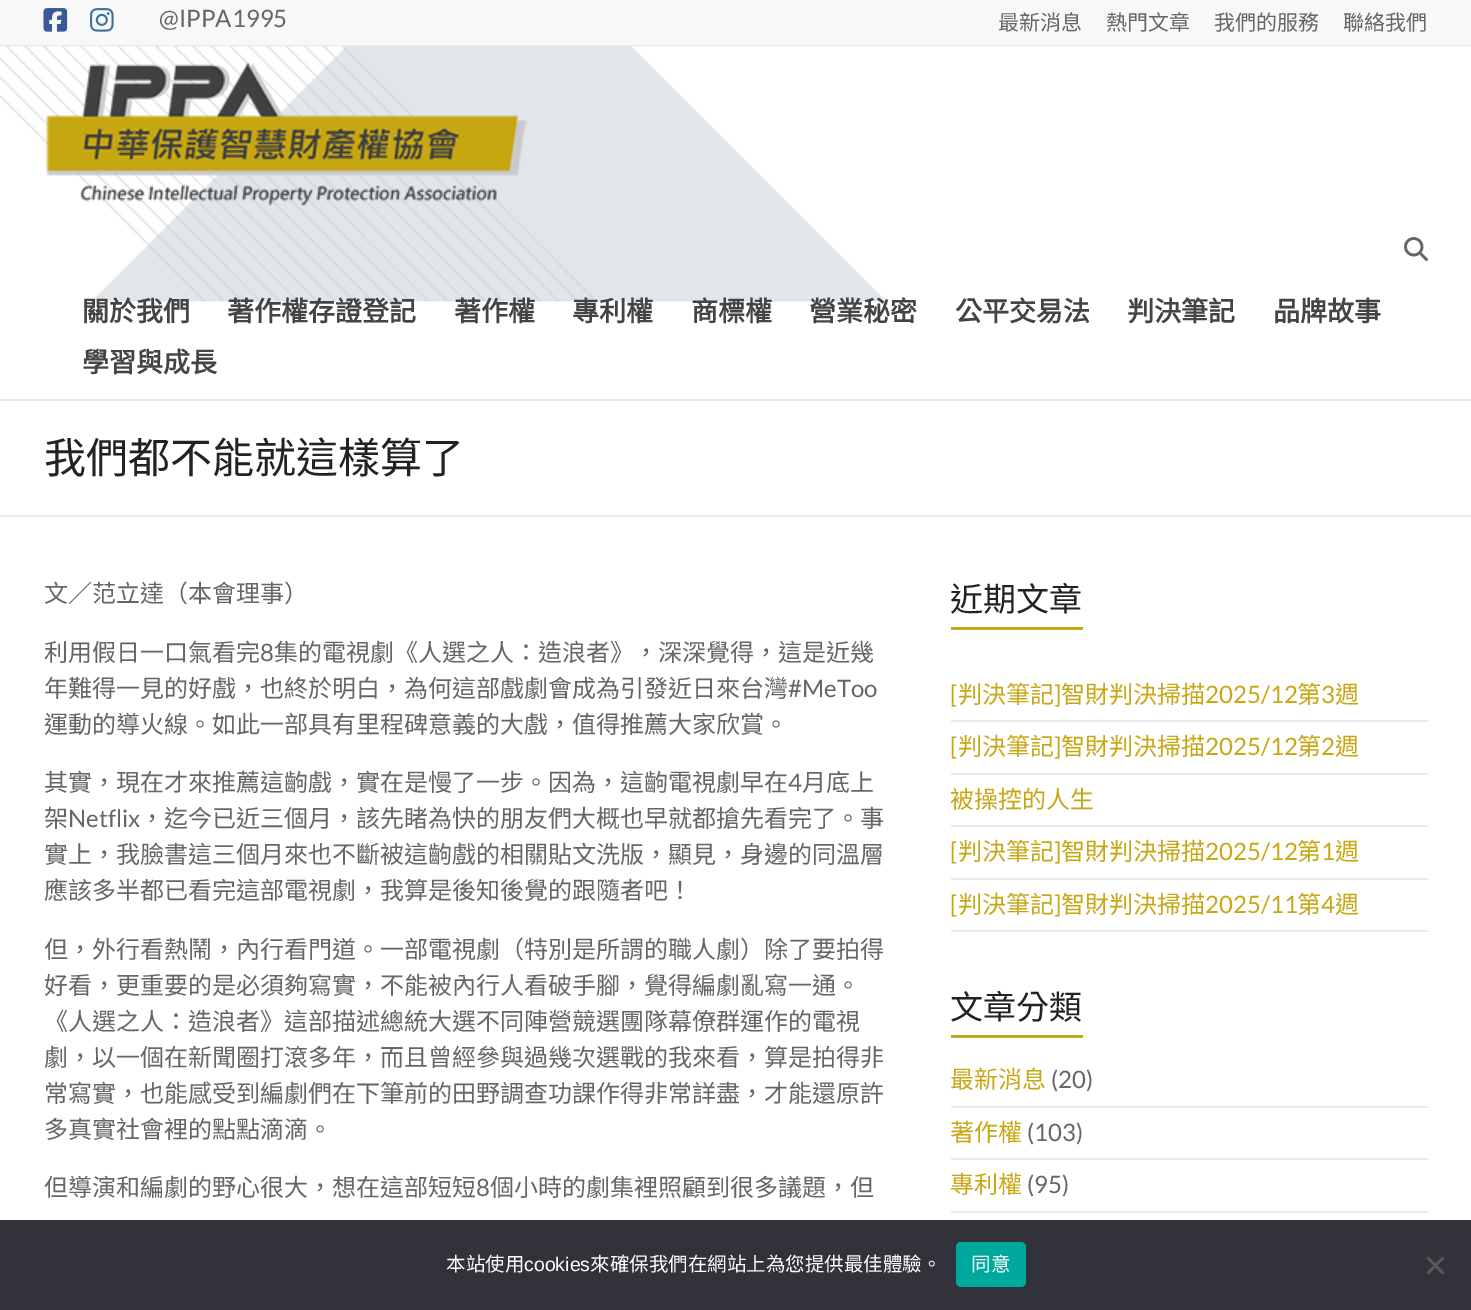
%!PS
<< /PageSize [1471 1310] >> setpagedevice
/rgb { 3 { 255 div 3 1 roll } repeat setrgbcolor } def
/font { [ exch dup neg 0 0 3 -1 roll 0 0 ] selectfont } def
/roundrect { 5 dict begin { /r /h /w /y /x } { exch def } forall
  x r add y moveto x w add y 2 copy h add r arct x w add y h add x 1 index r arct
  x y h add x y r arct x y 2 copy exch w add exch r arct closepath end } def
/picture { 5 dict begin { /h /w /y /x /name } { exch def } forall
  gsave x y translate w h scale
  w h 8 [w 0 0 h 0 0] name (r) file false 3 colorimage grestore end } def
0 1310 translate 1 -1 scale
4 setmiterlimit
255 255 255 rgb
0 0 1471 1310 rectfill
248 248 248 rgb
0 0 1471 45 rectfill
234 234 234 rgb
0 45 1471 2 rectfill
(img/1.rgb) 43 8 25 24 picture
(img/2.rgb) 90 8 24 24 picture
(img/3.rgb) 0 46 1471 256 picture
0 399 1471 2 rectfill
(img/4.rgb) 46 62 481 144 picture
(img/5.rgb) 1404 237 24 24 picture
[
  [0 515 1471 2 234 234 234]
  [951 627 132 3 199 167 19]
  [951 720 477 2 234 234 234]
  [951 773 477 2 234 234 234]
  [951 825 477 2 234 234 234]
  [951 878 477 2 234 234 234]
  [951 930 477 2 234 234 234]
  [951 1035 132 3 199 167 19]
  [951 1106 477 2 234 234 234]
  [951 1158 477 2 234 234 234]
  [951 1211 477 2 234 234 234]
  [0 1220 1471 90 50 50 58]
] { aload pop rgb rectfill } forall
0 169 157 rgb
956 1242 70 45 5 roundrect fill
89 89 93 rgb
1442.5 1256.5 moveto 1444.5 1258.5 lineto 1428.5 1274.5 lineto 1426.5 1272.5 lineto closepath fill
1426.5 1258.5 moveto 1428.5 1256.5 lineto 1444.5 1272.5 lineto 1442.5 1274.5 lineto closepath fill
/Lato-Regular 24 font
102 102 102 rgb
159 27 moveto (@IPPA1995) show
/NotoSansCJKTC-Regular 21 font
[
  [(最新消息) 998 30]
  [(熱門文章) 1106 30]
  [(我們的服務) 1214 30]
  [(聯絡我們) 1343 30]
] { aload pop moveto show } forall
/NotoSansCJKTC-Bold 27 font
68 68 68 rgb
[
  [(關於我們) 82 321]
  [(著作權存證登記) 227 321]
  [(著作權) 454 321]
  [(專利權) 572 321]
  [(商標權) 691 321]
  [(營業秘密) 809 321]
  [(公平交易法) 955 321]
  [(判決筆記) 1127 321]
  [(品牌故事) 1273 321]
  [(學習與成長) 82 372]
] { aload pop moveto show } forall
/NotoSansCJKTC-Regular 42 font
34 34 34 rgb
44 473 moveto (我們都不能就這樣算了) show
/NotoSansCJKTC-Regular 24 font
102 102 102 rgb
44 602 moveto (文／范立達（本會理事）) show
44 661 moveto (利用假日一口氣看完) show
/Lato-Regular 24 font
260 661 moveto (8) show
/NotoSansCJKTC-Regular 24 font
274 661 moveto (集的電視劇《人選之人：造浪者》，深深覺得，這是近幾) show
44 697 moveto (年難得一見的好戲，也終於明白，為何這部戲劇會成為引發近日來台灣) show
/Lato-Regular 24 font
788 697 moveto (#MeToo) show
/NotoSansCJKTC-Regular 24 font
44 733 moveto (運動的導火線。如此一部具有里程碑意義的大戲，值得推薦大家欣賞。) show
44 791 moveto (其實，現在才來推薦這齣戲，實在是慢了一步。因為，這齣電視劇早在) show
/Lato-Regular 24 font
788 791 moveto (4) show
/NotoSansCJKTC-Regular 24 font
802 791 moveto (月底上) show
44 827 moveto (架) show
/Lato-Regular 24 font
68 827 moveto (Netflix) show
/NotoSansCJKTC-Regular 24 font
[
  [(，迄今已近三個月，該先睹為快的朋友們大概也早就都搶先看完了。事) 140 827]
  [(實上，我臉書這三個月來也不斷被這齣戲的相關貼文洗版，顯見，身邊的同溫層) 44 863]
  [(應該多半都已看完這部電視劇，我算是後知後覺的跟隨者吧！) 44 899]
  [(但，外行看熱鬧，內行看門道。一部電視劇（特別是所謂的職人劇）除了要拍得) 44 958]
  [(好看，更重要的是必須夠寫實，不能被內行人看破手腳，覺得編劇亂寫一通。) 44 994]
  [(《人選之人：造浪者》這部描述總統大選不同陣營競選團隊幕僚群運作的電視) 44 1030]
  [(劇，以一個在新聞圈打滾多年，而且曾經參與過幾次選戰的我來看，算是拍得非) 44 1066]
  [(常寫實，也能感受到編劇們在下筆前的田野調查功課作得非常詳盡，才能還原許) 44 1102]
  [(多真實社會裡的點點滴滴。) 44 1138]
  [(但導演和編劇的野心很大，想在這部短短) 44 1196]
] { aload pop moveto show } forall
/Lato-Regular 24 font
476 1196 moveto (8) show
/NotoSansCJKTC-Regular 24 font
490 1196 moveto (個小時的劇集裡照顧到很多議題，但) show
/NotoSansCJKTC-Regular 33 font
34 34 34 rgb
950 611 moveto (近期文章) show
/Lato-Regular 24 font
199 167 19 rgb
950 703 moveto ([) show
/NotoSansCJKTC-Regular 24 font
958 703 moveto (判決筆記) show
/Lato-Regular 24 font
1054 703 moveto (]) show
/NotoSansCJKTC-Regular 24 font
1061 703 moveto (智財判決掃描) show
/Lato-Regular 24 font
1205 703 moveto (2025/12) show
/NotoSansCJKTC-Regular 24 font
1297 703 moveto (第) show
/Lato-Regular 24 font
1321 703 moveto (3) show
/NotoSansCJKTC-Regular 24 font
1335 703 moveto (週) show
/Lato-Regular 24 font
950 755 moveto ([) show
/NotoSansCJKTC-Regular 24 font
958 755 moveto (判決筆記) show
/Lato-Regular 24 font
1054 755 moveto (]) show
/NotoSansCJKTC-Regular 24 font
1061 755 moveto (智財判決掃描) show
/Lato-Regular 24 font
1205 755 moveto (2025/12) show
/NotoSansCJKTC-Regular 24 font
1297 755 moveto (第) show
/Lato-Regular 24 font
1321 755 moveto (2) show
/NotoSansCJKTC-Regular 24 font
1335 755 moveto (週) show
950 808 moveto (被操控的人生) show
/Lato-Regular 24 font
950 860 moveto ([) show
/NotoSansCJKTC-Regular 24 font
958 860 moveto (判決筆記) show
/Lato-Regular 24 font
1054 860 moveto (]) show
/NotoSansCJKTC-Regular 24 font
1061 860 moveto (智財判決掃描) show
/Lato-Regular 24 font
1205 860 moveto (2025/12) show
/NotoSansCJKTC-Regular 24 font
1297 860 moveto (第) show
/Lato-Regular 24 font
1321 860 moveto (1) show
/NotoSansCJKTC-Regular 24 font
1335 860 moveto (週) show
/Lato-Regular 24 font
950 913 moveto ([) show
/NotoSansCJKTC-Regular 24 font
958 913 moveto (判決筆記) show
/Lato-Regular 24 font
1054 913 moveto (]) show
/NotoSansCJKTC-Regular 24 font
1061 913 moveto (智財判決掃描) show
/Lato-Regular 24 font
1205 913 moveto (2025/11) show
/NotoSansCJKTC-Regular 24 font
1297 913 moveto (第) show
/Lato-Regular 24 font
1321 913 moveto (4) show
/NotoSansCJKTC-Regular 24 font
1335 913 moveto (週) show
/NotoSansCJKTC-Regular 33 font
34 34 34 rgb
950 1019 moveto (文章分類) show
/NotoSansCJKTC-Regular 24 font
199 167 19 rgb
950 1088 moveto (最新消息) show
/Lato-Regular 24 font
102 102 102 rgb
1051 1088 moveto (\(20\)) show
/NotoSansCJKTC-Regular 24 font
199 167 19 rgb
950 1141 moveto (著作權) show
/Lato-Regular 24 font
102 102 102 rgb
1027 1141 moveto (\(103\)) show
/NotoSansCJKTC-Regular 24 font
199 167 19 rgb
950 1193 moveto (專利權) show
/Lato-Regular 24 font
102 102 102 rgb
1027 1193 moveto (\(95\)) show
/NotoSansCJKTC-Regular 19.5 font
255 255 255 rgb
446 1271 moveto (本站使用) show
/LiberationSans-Regular 19.5 font
524 1271 moveto (cookies) show
/NotoSansCJKTC-Regular 19.5 font
590 1271 moveto (來確保我們在網站上為您提供最佳體驗。) show
971 1271 moveto (同意) show
showpage
